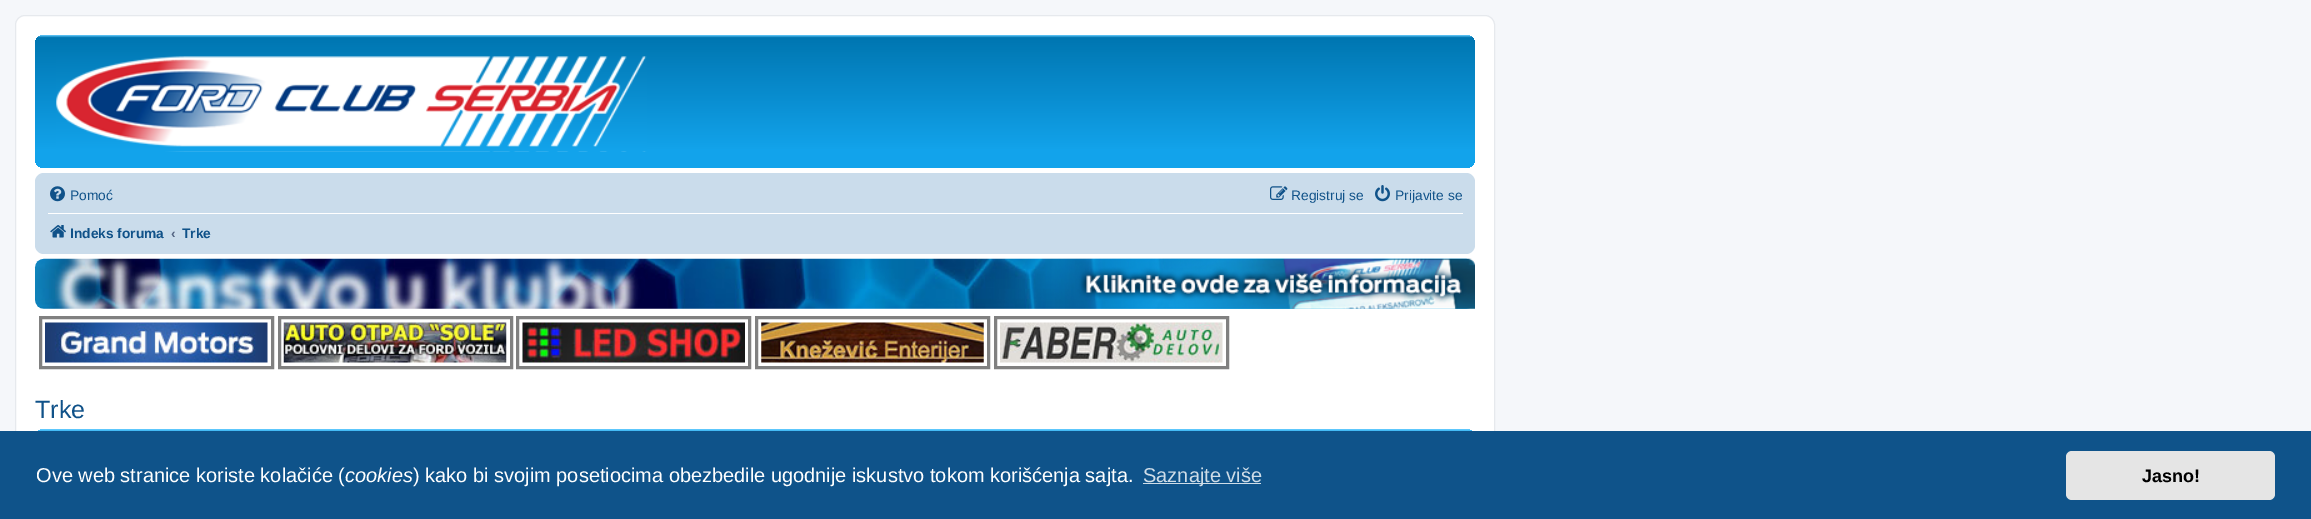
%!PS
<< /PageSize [2311 519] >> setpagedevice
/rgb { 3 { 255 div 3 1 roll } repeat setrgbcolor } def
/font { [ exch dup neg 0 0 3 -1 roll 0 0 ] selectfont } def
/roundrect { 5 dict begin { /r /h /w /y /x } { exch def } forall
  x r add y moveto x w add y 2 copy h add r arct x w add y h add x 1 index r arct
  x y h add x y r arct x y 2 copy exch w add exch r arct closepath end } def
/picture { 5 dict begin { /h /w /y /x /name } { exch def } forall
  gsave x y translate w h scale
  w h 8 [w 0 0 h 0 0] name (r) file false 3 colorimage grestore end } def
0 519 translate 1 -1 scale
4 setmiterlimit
245 247 250 rgb
0 0 2311 519 rectfill
255 255 255 rgb
15.5 15.5 1479 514 9.5 roundrect gsave fill grestore
230 233 237 rgb
stroke
gsave 35 35 1440 133 9 roundrect clip newpath
<< /ShadingType 2 /ColorSpace /DeviceRGB /Coords [755 35 755 168] /Extend [true true] /Function << /FunctionType 3 /Domain [0 1] /Functions [<< /FunctionType 2 /Domain [0 1] /C0 [0.416 0.808 1] /C1 [0 0.463 0.694] /N 1 >> << /FunctionType 2 /Domain [0 1] /C0 [0 0.463 0.694] /C1 [0.071 0.639 0.922] /N 1 >> << /FunctionType 2 /Domain [0 1] /C0 [0.071 0.639 0.922] /C1 [0.071 0.639 0.922] /N 1 >>] /Bounds [0.02 0.87] /Encode [0 1 0 1 0 1] >> >> shfill grestore
(img/1.rgb) 56 56 591 96 picture
202 220 235 rgb
35 173 1440 81 9 roundrect fill
(img/2.rgb) 50 186 15 16 picture
(img/3.rgb) 1270 186 18 14 picture
(img/4.rgb) 1375 185 15 17 picture
255 255 255 rgb
48 213 1415 1 rectfill
(img/5.rgb) 50 225 16 13 picture
(img/6.rgb) 34 258 1441 51 picture
(img/7.rgb) 974 258 501 51 picture
128 128 128 rgb
3 setlinewidth
40.5 317.5 232 50 rectstroke
(img/8.rgb) 45 322 223 41 picture
279.5 317.5 232 50 rectstroke
(img/9.rgb) 283 322 224 41 picture
517.5 317.5 232 50 rectstroke
(img/10.rgb) 522 322 223 41 picture
756.5 317.5 232 50 rectstroke
(img/11.rgb) 761 322 223 41 picture
995.5 317.5 232 50 rectstroke
(img/12.rgb) 1000 322 223 41 picture
gsave 35 429 1440 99 9 roundrect clip newpath
<< /ShadingType 2 /ColorSpace /DeviceRGB /Coords [755 429 755 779] /Extend [true true] /Function << /FunctionType 3 /Domain [0 1] /Functions [<< /FunctionType 2 /Domain [0 1] /C0 [0.416 0.808 1] /C1 [0.071 0.639 0.922] /N 1 >> << /FunctionType 2 /Domain [0 1] /C0 [0.071 0.639 0.922] /C1 [0 0.463 0.694] /N 1 >> << /FunctionType 2 /Domain [0 1] /C0 [0 0.463 0.694] /C1 [0 0.463 0.694] /N 1 >>] /Bounds [0.01 0.33] /Encode [0 1 0 1 0 1] >> >> shfill grestore
15 83 138 rgb
0 431 2311 88 rectfill
207 221 232 rgb
1143 483 118 1 rectfill
229 229 229 rgb
2066 451 209 49 6 roundrect fill
/LiberationSans-Regular 13.75 font
16 82 137 rgb
[
  [(Pomoć) 70 200]
  [(Registruj se) 1291 200]
  [(Prijavite se) 1395 200]
] { aload pop moveto show } forall
/LiberationSans-Bold 13.75 font
70 238 moveto (Indeks foruma) show
83 100 130 rgb
171 238 moveto (‹) show
16 82 137 rgb
182 238 moveto (Trke) show
/LiberationSans-Regular 25 font
35 418 moveto (Trke) show
/LiberationSans-Regular 20 font
255 255 255 rgb
36 482 moveto (Ove web stranice koriste kolačiće \() show
/LiberationSans-Italic 20 font
345 482 moveto (cookies) show
/LiberationSans-Regular 20 font
413 482 moveto (\) kako bi svojim posetiocima obezbedile ugodnije iskustvo tokom korišćenja sajta.) show
207 221 232 rgb
1143 482 moveto (Saznajte više) show
/LiberationSans-Bold 18 font
0 0 0 rgb
2142 482 moveto (Jasno!) show
showpage
